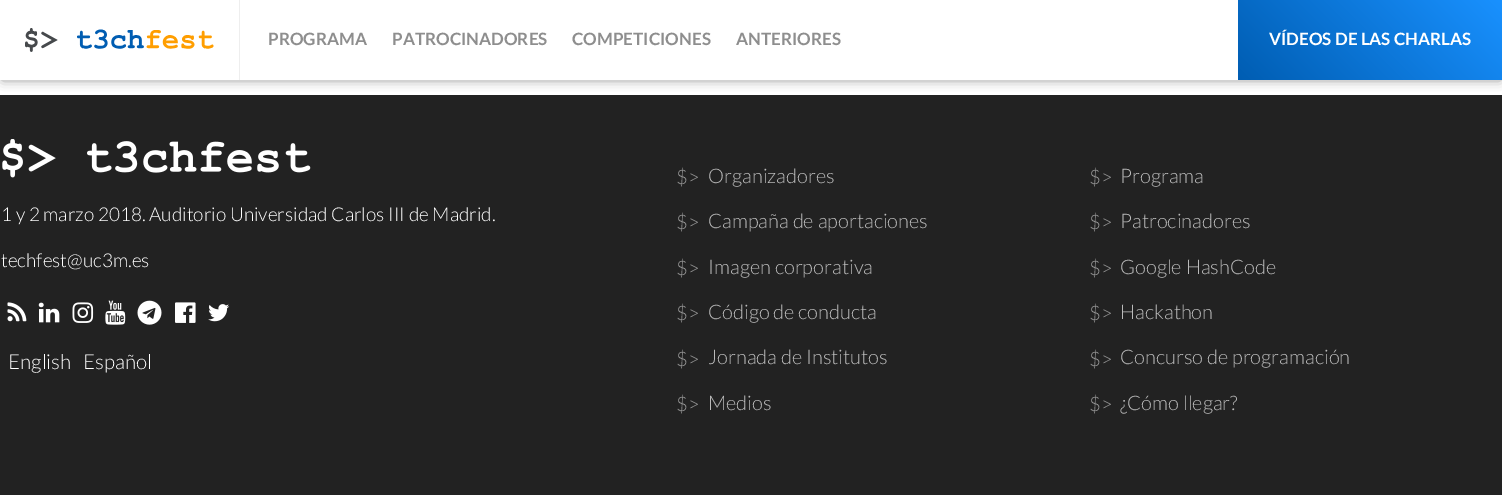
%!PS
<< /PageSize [1502 495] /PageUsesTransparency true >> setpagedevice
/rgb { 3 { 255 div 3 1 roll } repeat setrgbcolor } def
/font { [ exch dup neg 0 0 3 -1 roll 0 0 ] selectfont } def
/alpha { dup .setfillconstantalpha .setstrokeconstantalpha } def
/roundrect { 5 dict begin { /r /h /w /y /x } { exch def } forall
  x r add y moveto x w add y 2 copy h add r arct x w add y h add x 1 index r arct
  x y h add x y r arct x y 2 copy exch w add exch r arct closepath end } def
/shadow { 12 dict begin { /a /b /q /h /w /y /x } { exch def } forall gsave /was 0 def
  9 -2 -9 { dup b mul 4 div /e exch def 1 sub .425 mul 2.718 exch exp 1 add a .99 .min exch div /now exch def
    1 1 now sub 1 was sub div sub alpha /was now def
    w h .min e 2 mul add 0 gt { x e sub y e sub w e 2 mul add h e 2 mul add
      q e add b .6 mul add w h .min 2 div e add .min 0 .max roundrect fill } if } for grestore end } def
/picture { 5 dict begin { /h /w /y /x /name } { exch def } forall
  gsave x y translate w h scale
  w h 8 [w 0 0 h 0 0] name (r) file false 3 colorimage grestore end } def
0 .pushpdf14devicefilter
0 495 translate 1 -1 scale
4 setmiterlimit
255 255 255 rgb
0 0 1502 495 rectfill
34 34 34 rgb
0 95 1502 400 rectfill
0 0 0 rgb
3 3 1497 75 0 6 0.6 shadow
255 255 255 rgb
0 0 1238 80 rectfill
238 238 238 rgb
239 0 1 80 rectfill
(img/1.rgb) 25 28 189 24 picture
gsave 1238 0 moveto 1502 0 lineto 1502 80 lineto 1238 80 lineto closepath clip newpath
<< /ShadingType 2 /ColorSpace /DeviceRGB /Coords [1284 126 1456 -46] /Extend [true true] /Function << /FunctionType 2 /Domain [0 1] /C0 [0 0.365 0.698] /C1 [0.098 0.569 1] /N 1 >> >> shfill grestore
(img/2.rgb) 2 139 309 39 picture
(img/3.rgb) 7 302 20 20 picture
(img/4.rgb) 38 302 22 21 picture
(img/5.rgb) 72 302 22 21 picture
(img/6.rgb) 105 300 21 25 picture
(img/7.rgb) 137 300 25 25 picture
(img/8.rgb) 175 302 21 21 picture
(img/9.rgb) 208 304 21 18 picture
/Lato-Bold 17 font
142 142 142 rgb
[
  [(PROGRAMA) 268 45]
  [(PATROCINADORES) 392 45]
  [(COMPETICIONES) 572 45]
  [(ANTERIORES) 736 45]
] { aload pop moveto show } forall
255 255 255 rgb
1269 45 moveto (VÍDEOS DE LAS CHARLAS) show
/Lato-Light 19 font
1 221 moveto (1 y 2 marzo 2018. Auditorio Universidad Carlos III de Madrid.) show
1 267 moveto (techfest@uc3m.es) show
/Lato-Light 20.5 font
8 369 moveto (English) show
83 369 moveto (Español) show
/Lato-Light 20 font
153 153 153 rgb
676 184 moveto ($>) show
187 187 187 rgb
708 183 moveto (Organizadores) show
153 153 153 rgb
676 229 moveto ($>) show
187 187 187 rgb
708 228 moveto (Campaña de aportaciones) show
153 153 153 rgb
676 275 moveto ($>) show
187 187 187 rgb
708 274 moveto (Imagen corporativa) show
153 153 153 rgb
676 320 moveto ($>) show
187 187 187 rgb
708 319 moveto (Código de conducta) show
153 153 153 rgb
676 366 moveto ($>) show
187 187 187 rgb
708 364 moveto (Jornada de Institutos) show
153 153 153 rgb
676 411 moveto ($>) show
187 187 187 rgb
708 410 moveto (Medios) show
153 153 153 rgb
1089 184 moveto ($>) show
187 187 187 rgb
1120 183 moveto (Programa) show
153 153 153 rgb
1089 229 moveto ($>) show
187 187 187 rgb
1120 228 moveto (Patrocinadores) show
153 153 153 rgb
1089 275 moveto ($>) show
187 187 187 rgb
1120 274 moveto (Google HashCode) show
153 153 153 rgb
1089 320 moveto ($>) show
187 187 187 rgb
1120 319 moveto (Hackathon) show
153 153 153 rgb
1089 366 moveto ($>) show
187 187 187 rgb
1120 364 moveto (Concurso de programación) show
153 153 153 rgb
1089 411 moveto ($>) show
187 187 187 rgb
1120 410 moveto (¿Cómo llegar?) show
.poppdf14devicefilter showpage
